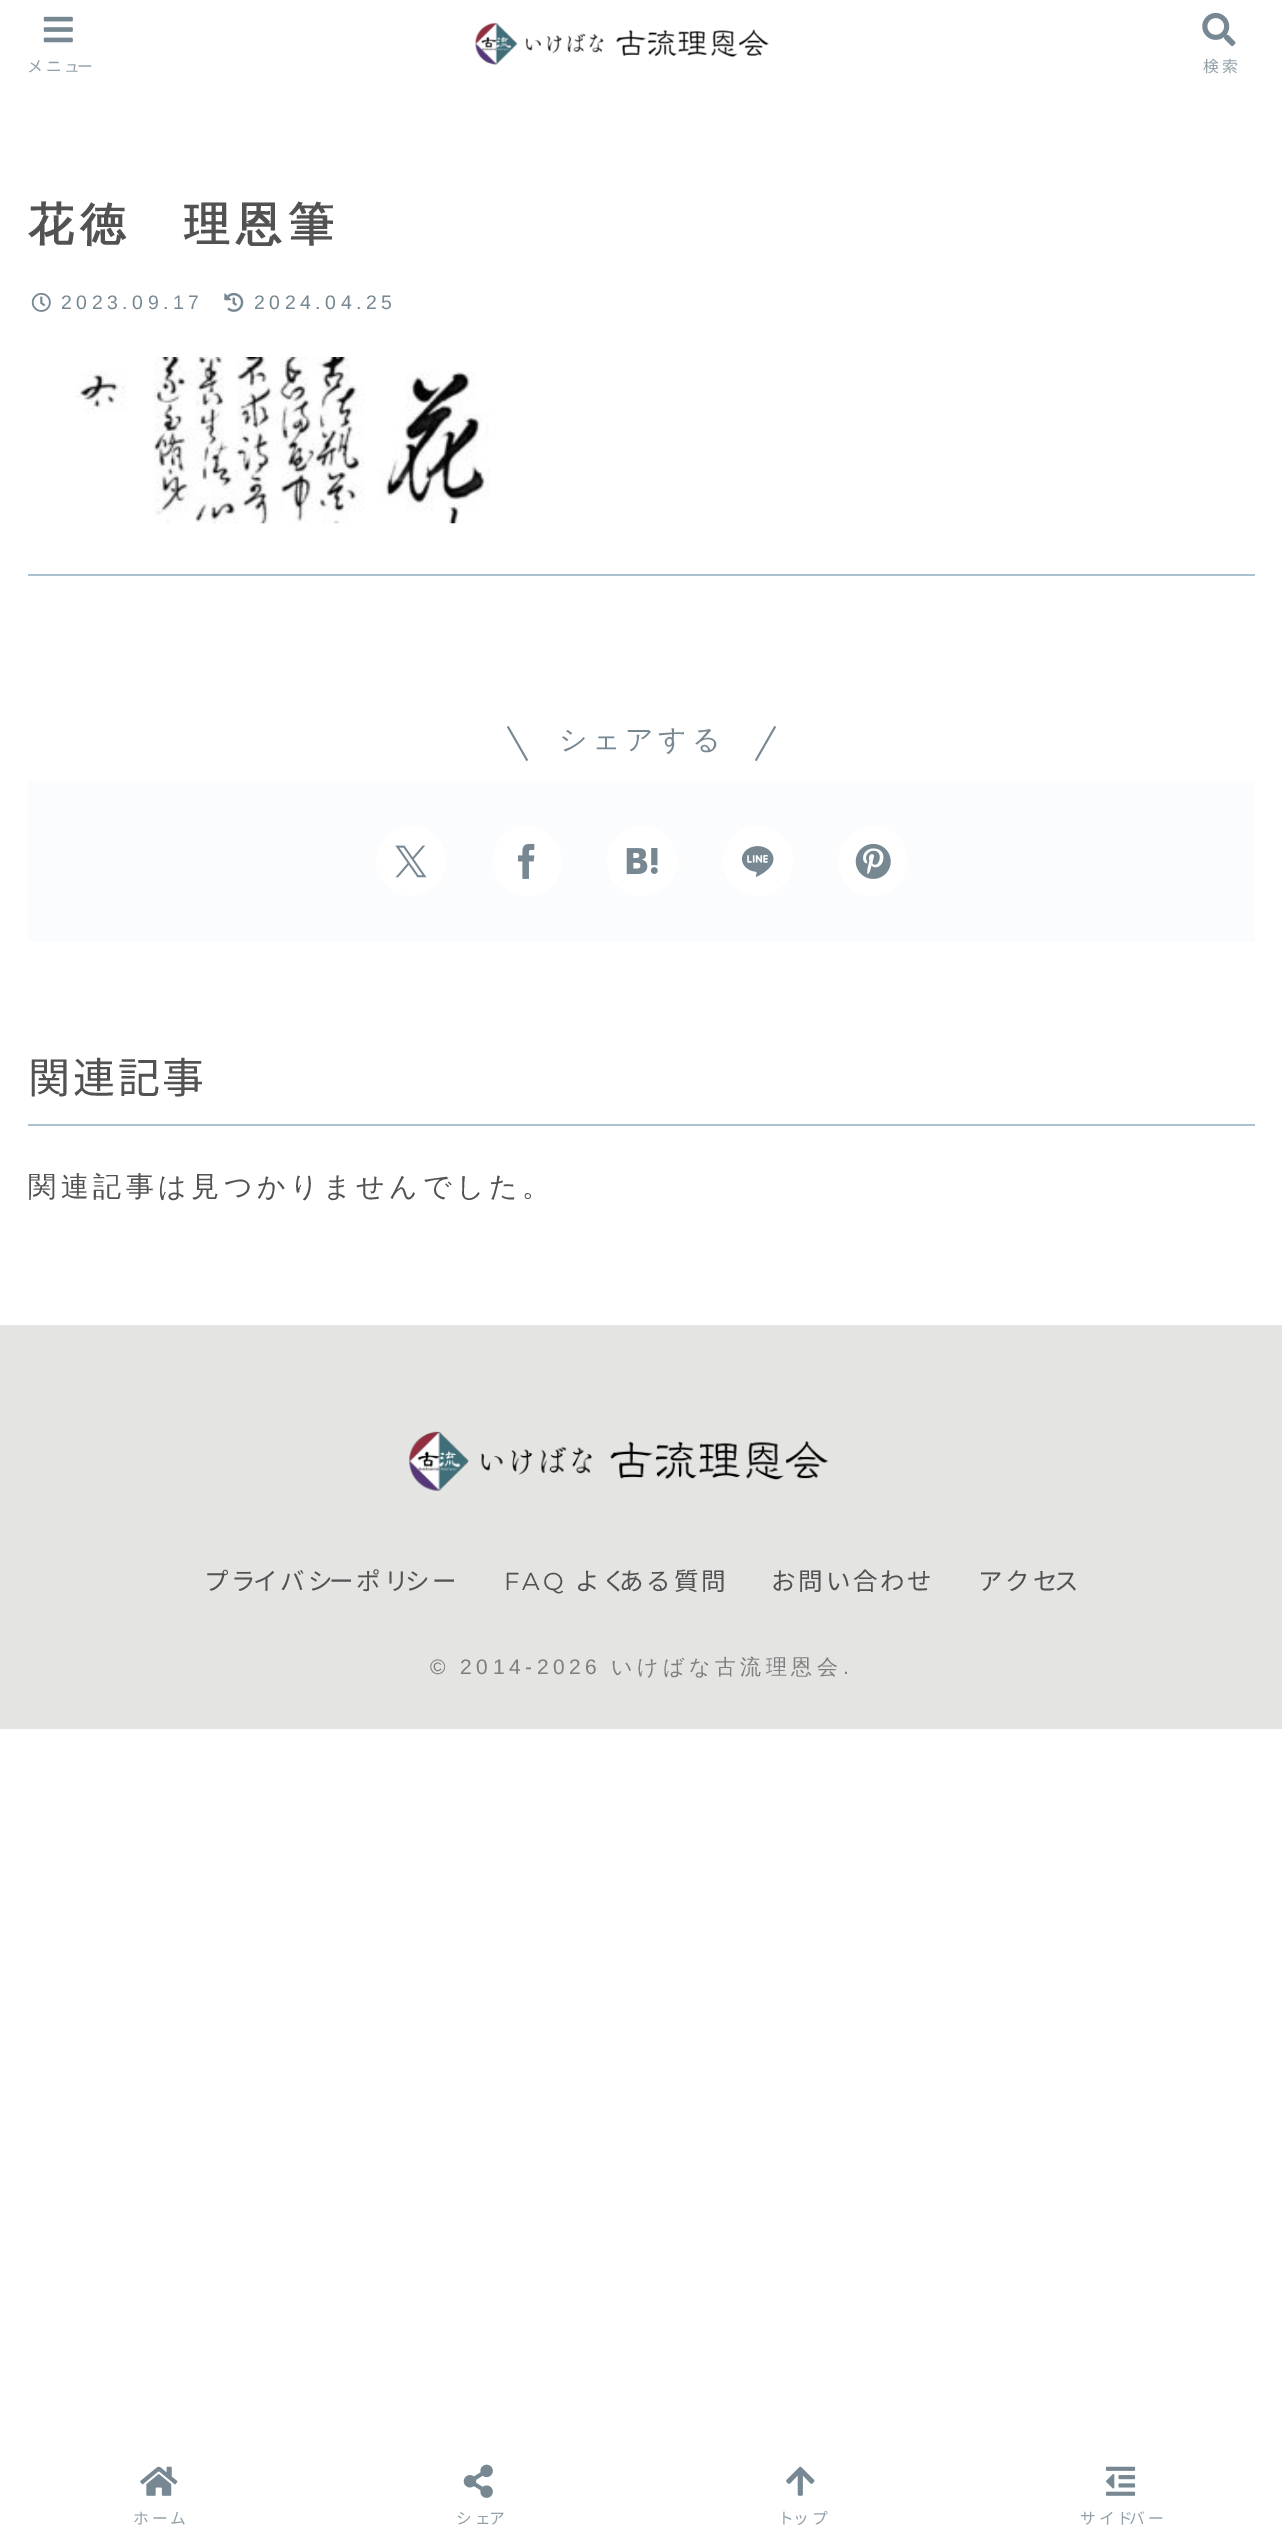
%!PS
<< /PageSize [1282 2539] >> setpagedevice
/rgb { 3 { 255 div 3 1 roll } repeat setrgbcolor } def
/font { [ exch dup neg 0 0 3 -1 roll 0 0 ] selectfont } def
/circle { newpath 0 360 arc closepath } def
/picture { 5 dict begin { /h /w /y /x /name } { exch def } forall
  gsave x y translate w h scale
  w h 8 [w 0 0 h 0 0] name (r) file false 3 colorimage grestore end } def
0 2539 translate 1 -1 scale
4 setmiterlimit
255 255 255 rgb
0 0 1282 2539 rectfill
(img/1.rgb) 43 16 30 27 picture
(img/2.rgb) 475 22 294 43 picture
(img/3.rgb) 1202 12 34 35 picture
(img/4.rgb) 31 292 20 20 picture
(img/5.rgb) 224 292 20 20 picture
170 194 210 rgb
28 574 1227 2 rectfill
(img/6.rgb) 75 357 415 167 picture
119 136 147 rgb
507 727 moveto 508.5 726 lineto 528 760 lineto 526.5 761 lineto closepath fill
774.5 726 moveto 776 727 lineto 756.5 761 lineto 755 760 lineto closepath fill
251 252 253 rgb
28 781 1227 161 rectfill
255 255 255 rgb
411 861 35 circle fill
(img/7.rgb) 395 845 32 33 picture
527 861 35 circle fill
(img/8.rgb) 518 843 17 36 picture
642 861 35 circle fill
(img/9.rgb) 626 848 32 27 picture
758 861 35 circle fill
(img/10.rgb) 741 846 33 31 picture
873 861 35 circle fill
(img/11.rgb) 855 843 36 36 picture
170 194 210 rgb
28 1124 1227 2 rectfill
228 228 227 rgb
0 1325 1282 404 rectfill
(img/12.rgb) 409 1431 420 60 picture
(img/13.rgb) 140 2466 38 30 picture
(img/14.rgb) 463 2464 30 34 picture
(img/15.rgb) 786 2466 29 30 picture
(img/16.rgb) 1106 2466 30 30 picture
/NotoSansJP-Thin 15.75 font
146 160 169 rgb
27 72 moveto 2.75 0 (メニュ) ashow
77 72 moveto 2.75 0 (ー) ashow
1203 72 moveto 2.75 0 (検索) ashow
/WenQuanYiZenHei-Bold 45.5 font
83 82 82 rgb
28 240 moveto 6.5 0 (花徳　理恩筆) ashow
/LiberationSans-Regular 19.5 font
119 136 147 rgb
61 309 moveto 4.5 0 (2023.09.17) ashow
254 309 moveto 4.5 0 (2024.04.25) ashow
/WenQuanYiZenHei-Medium 28 font
559 749 moveto 4.5 0 (シェアする) ashow
/NotoSansJP-Thin 42 font
83 82 82 rgb
28 1093 moveto 2.75 0 (関連記事) ashow
/WenQuanYiZenHei-Medium 28 font
28 1196 moveto 4.5 0 (関連記事は見つかりませんでした。) ashow
/NotoSansJP-Thin 24.5 font
204 1590 moveto 2.75 0 (プラ) ashow
253 1590 moveto 2.75 0 (イバシ) ashow
329 1590 moveto 2.75 0 (ーポリ) ashow
405 1590 moveto 2.75 0 (シー) ashow
/Montserrat-Regular 24.5 font
504 1590 moveto 2.75 0 (FAQ) ashow
/NotoSansJP-Thin 24.5 font
575 1590 moveto 2.75 0 (よく) ashow
619 1590 moveto 2.75 0 (ある質問) ashow
771 1590 moveto 2.75 0 (お問い合わせ) ashow
978 1590 moveto 2.75 0 (アクセ) ashow
1054 1590 moveto 2.75 0 (ス) ashow
/LiberationSans-Regular 21 font
127 126 126 rgb
430 1674 moveto 4.5 0 (© 2014-2026) ashow
/WenQuanYiZenHei-Medium 21 font
611 1674 moveto 4.5 0 (いけばな古流理恩会) ashow
/LiberationSans-Regular 21 font
843 1674 moveto 4.5 0 (.) ashow
/NotoSansJP-Thin 15.75 font
146 160 169 rgb
133 2524 moveto 2.75 0 (ホーム) ashow
456 2524 moveto 2.75 0 (シェ) ashow
489 2524 moveto 2.75 0 (ア) ashow
778 2524 moveto 2.75 0 (ト) ashow
793 2524 moveto 2.75 0 (ップ) ashow
1080 2524 moveto 2.75 0 (サイド) ashow
1129 2524 moveto 2.75 0 (バー) ashow
showpage
